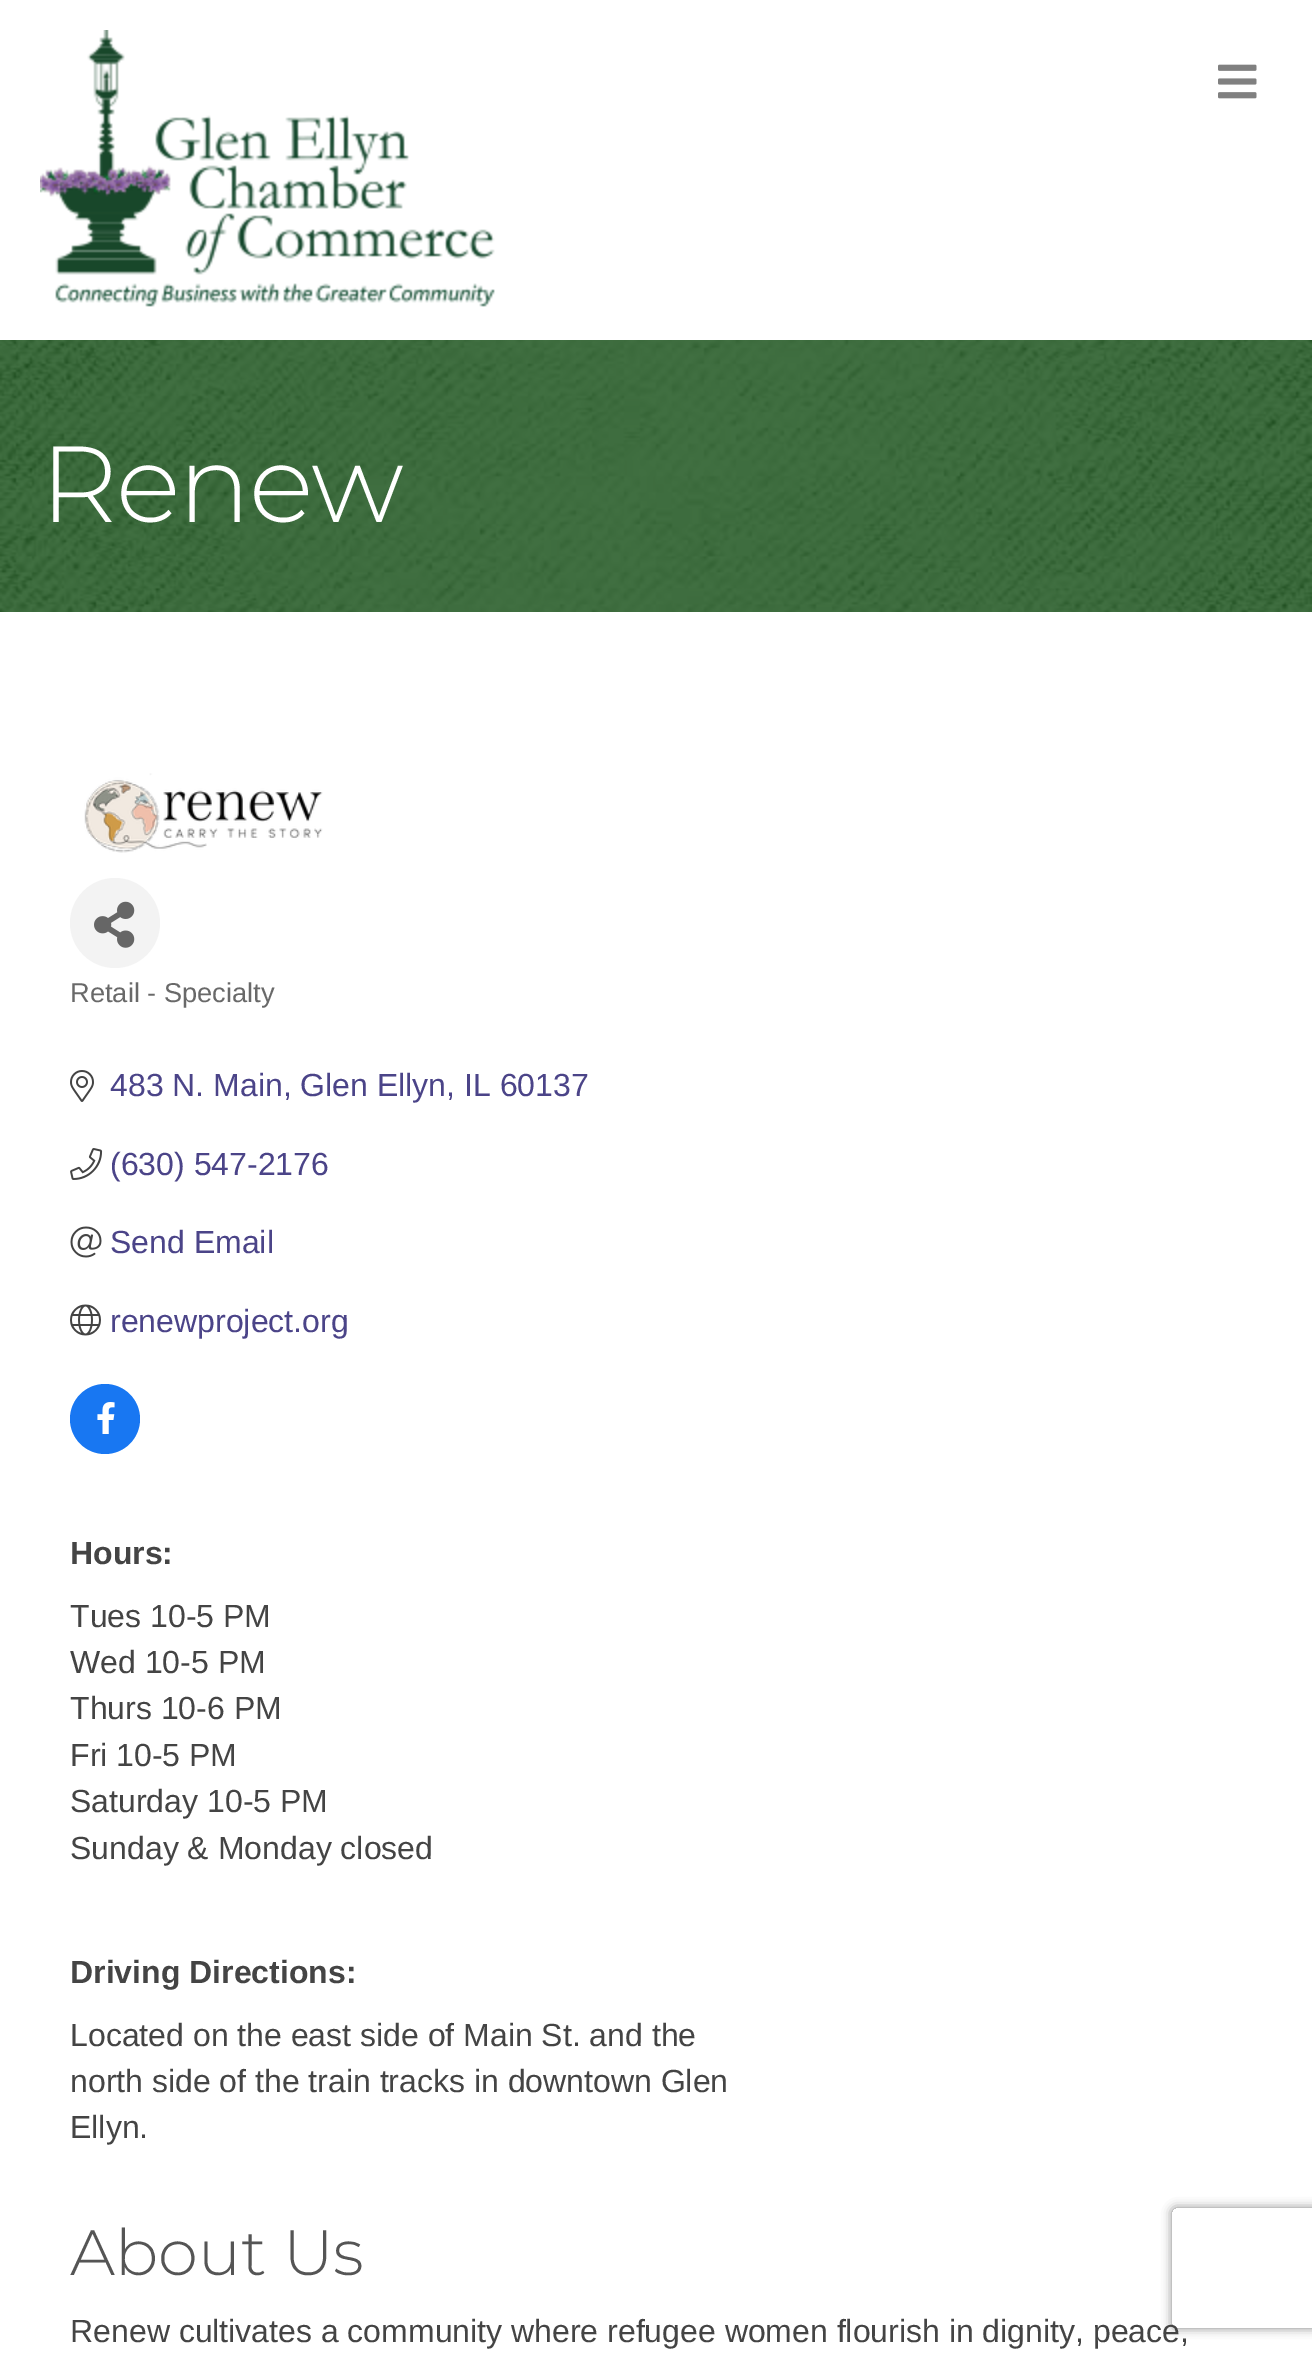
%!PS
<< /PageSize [1312 2356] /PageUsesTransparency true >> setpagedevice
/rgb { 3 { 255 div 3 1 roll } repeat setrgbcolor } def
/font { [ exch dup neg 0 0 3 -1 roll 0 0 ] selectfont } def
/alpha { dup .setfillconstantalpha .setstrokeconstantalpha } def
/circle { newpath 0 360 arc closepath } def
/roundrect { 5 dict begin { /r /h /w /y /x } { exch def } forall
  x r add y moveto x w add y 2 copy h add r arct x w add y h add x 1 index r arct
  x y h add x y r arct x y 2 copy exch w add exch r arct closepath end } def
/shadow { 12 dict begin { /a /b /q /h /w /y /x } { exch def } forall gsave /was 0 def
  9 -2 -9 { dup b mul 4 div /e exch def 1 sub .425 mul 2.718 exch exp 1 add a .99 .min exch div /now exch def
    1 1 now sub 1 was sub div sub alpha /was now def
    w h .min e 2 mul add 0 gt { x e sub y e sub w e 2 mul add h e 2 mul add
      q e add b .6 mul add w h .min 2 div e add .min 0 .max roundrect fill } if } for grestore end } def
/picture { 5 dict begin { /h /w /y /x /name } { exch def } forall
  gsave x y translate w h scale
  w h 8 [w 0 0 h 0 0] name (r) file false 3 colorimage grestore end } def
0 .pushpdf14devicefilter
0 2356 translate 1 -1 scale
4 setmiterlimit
255 255 255 rgb
0 0 1312 2356 rectfill
(img/1.rgb) 40 30 455 277 picture
(img/2.rgb) 1218 64 39 35 picture
(img/3.rgb) 0 340 1312 272 picture
(img/4.rgb) 84 773 239 80 picture
243 243 243 rgb
115 923 45 circle fill
(img/5.rgb) 94 901 41 47 picture
(img/6.rgb) 70 1070 24 32 picture
(img/7.rgb) 70 1148 33 32 picture
(img/8.rgb) 70 1226 32 32 picture
(img/9.rgb) 70 1304 31 32 picture
24 119 242 rgb
105 1419 35 circle fill
(img/10.rgb) 97 1402 18 32 picture
gsave
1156 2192 moveto 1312 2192 lineto 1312 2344 lineto 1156 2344 lineto closepath 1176 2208 moveto 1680 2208 lineto 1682 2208 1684 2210 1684 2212 curveto 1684 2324 lineto 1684 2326 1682 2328 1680 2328 curveto 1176 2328 lineto 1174 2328 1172 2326 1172 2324 curveto 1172 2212 lineto 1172 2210 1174 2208 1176 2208 curveto closepath eoclip newpath
128 128 128 rgb
1172 2208 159 120 4 5 1 shadow
grestore
/Montserrat-Light 108 font
255 255 255 rgb
40 522 moveto -2 0 (Renew) ashow
/LiberationSans-Regular 27.25 font
105 105 105 rgb
70 1002 moveto (Retail - Specialty) show
/LiberationSans-Regular 32 font
75 68 136 rgb
[
  [(483 N. Main, Glen Ellyn, IL 60137) 110 1096]
  [(\(630\) 547-2176) 110 1175]
  [(Send Email) 110 1253]
  [(renewproject.org) 110 1332]
] { aload pop moveto show } forall
/LiberationSans-Bold 32 font
68 68 68 rgb
70 1564 moveto (Hours:) show
/LiberationSans-Regular 32 font
[
  [(Tues 10-5 PM) 70 1627]
  [(Wed 10-5 PM) 70 1673]
  [(Thurs 10-6 PM) 70 1719]
  [(Fri 10-5 PM) 70 1766]
  [(Saturday 10-5 PM) 70 1812]
  [(Sunday & Monday closed) 70 1859]
] { aload pop moveto show } forall
/LiberationSans-Bold 32 font
70 1983 moveto (Driving Directions:) show
/LiberationSans-Regular 32 font
[
  [(Located on the east side of Main St. and the) 70 2046]
  [(north side of the train tracks in downtown Glen) 70 2092]
  [(Ellyn.) 70 2138]
] { aload pop moveto show } forall
/Montserrat-Light 64 font
85 85 85 rgb
70 2275 moveto (About Us) show
/LiberationSans-Regular 32 font
68 68 68 rgb
70 2342 moveto (Renew cultivates a community where refugee women flourish in dignity, peace,) show
.poppdf14devicefilter showpage
